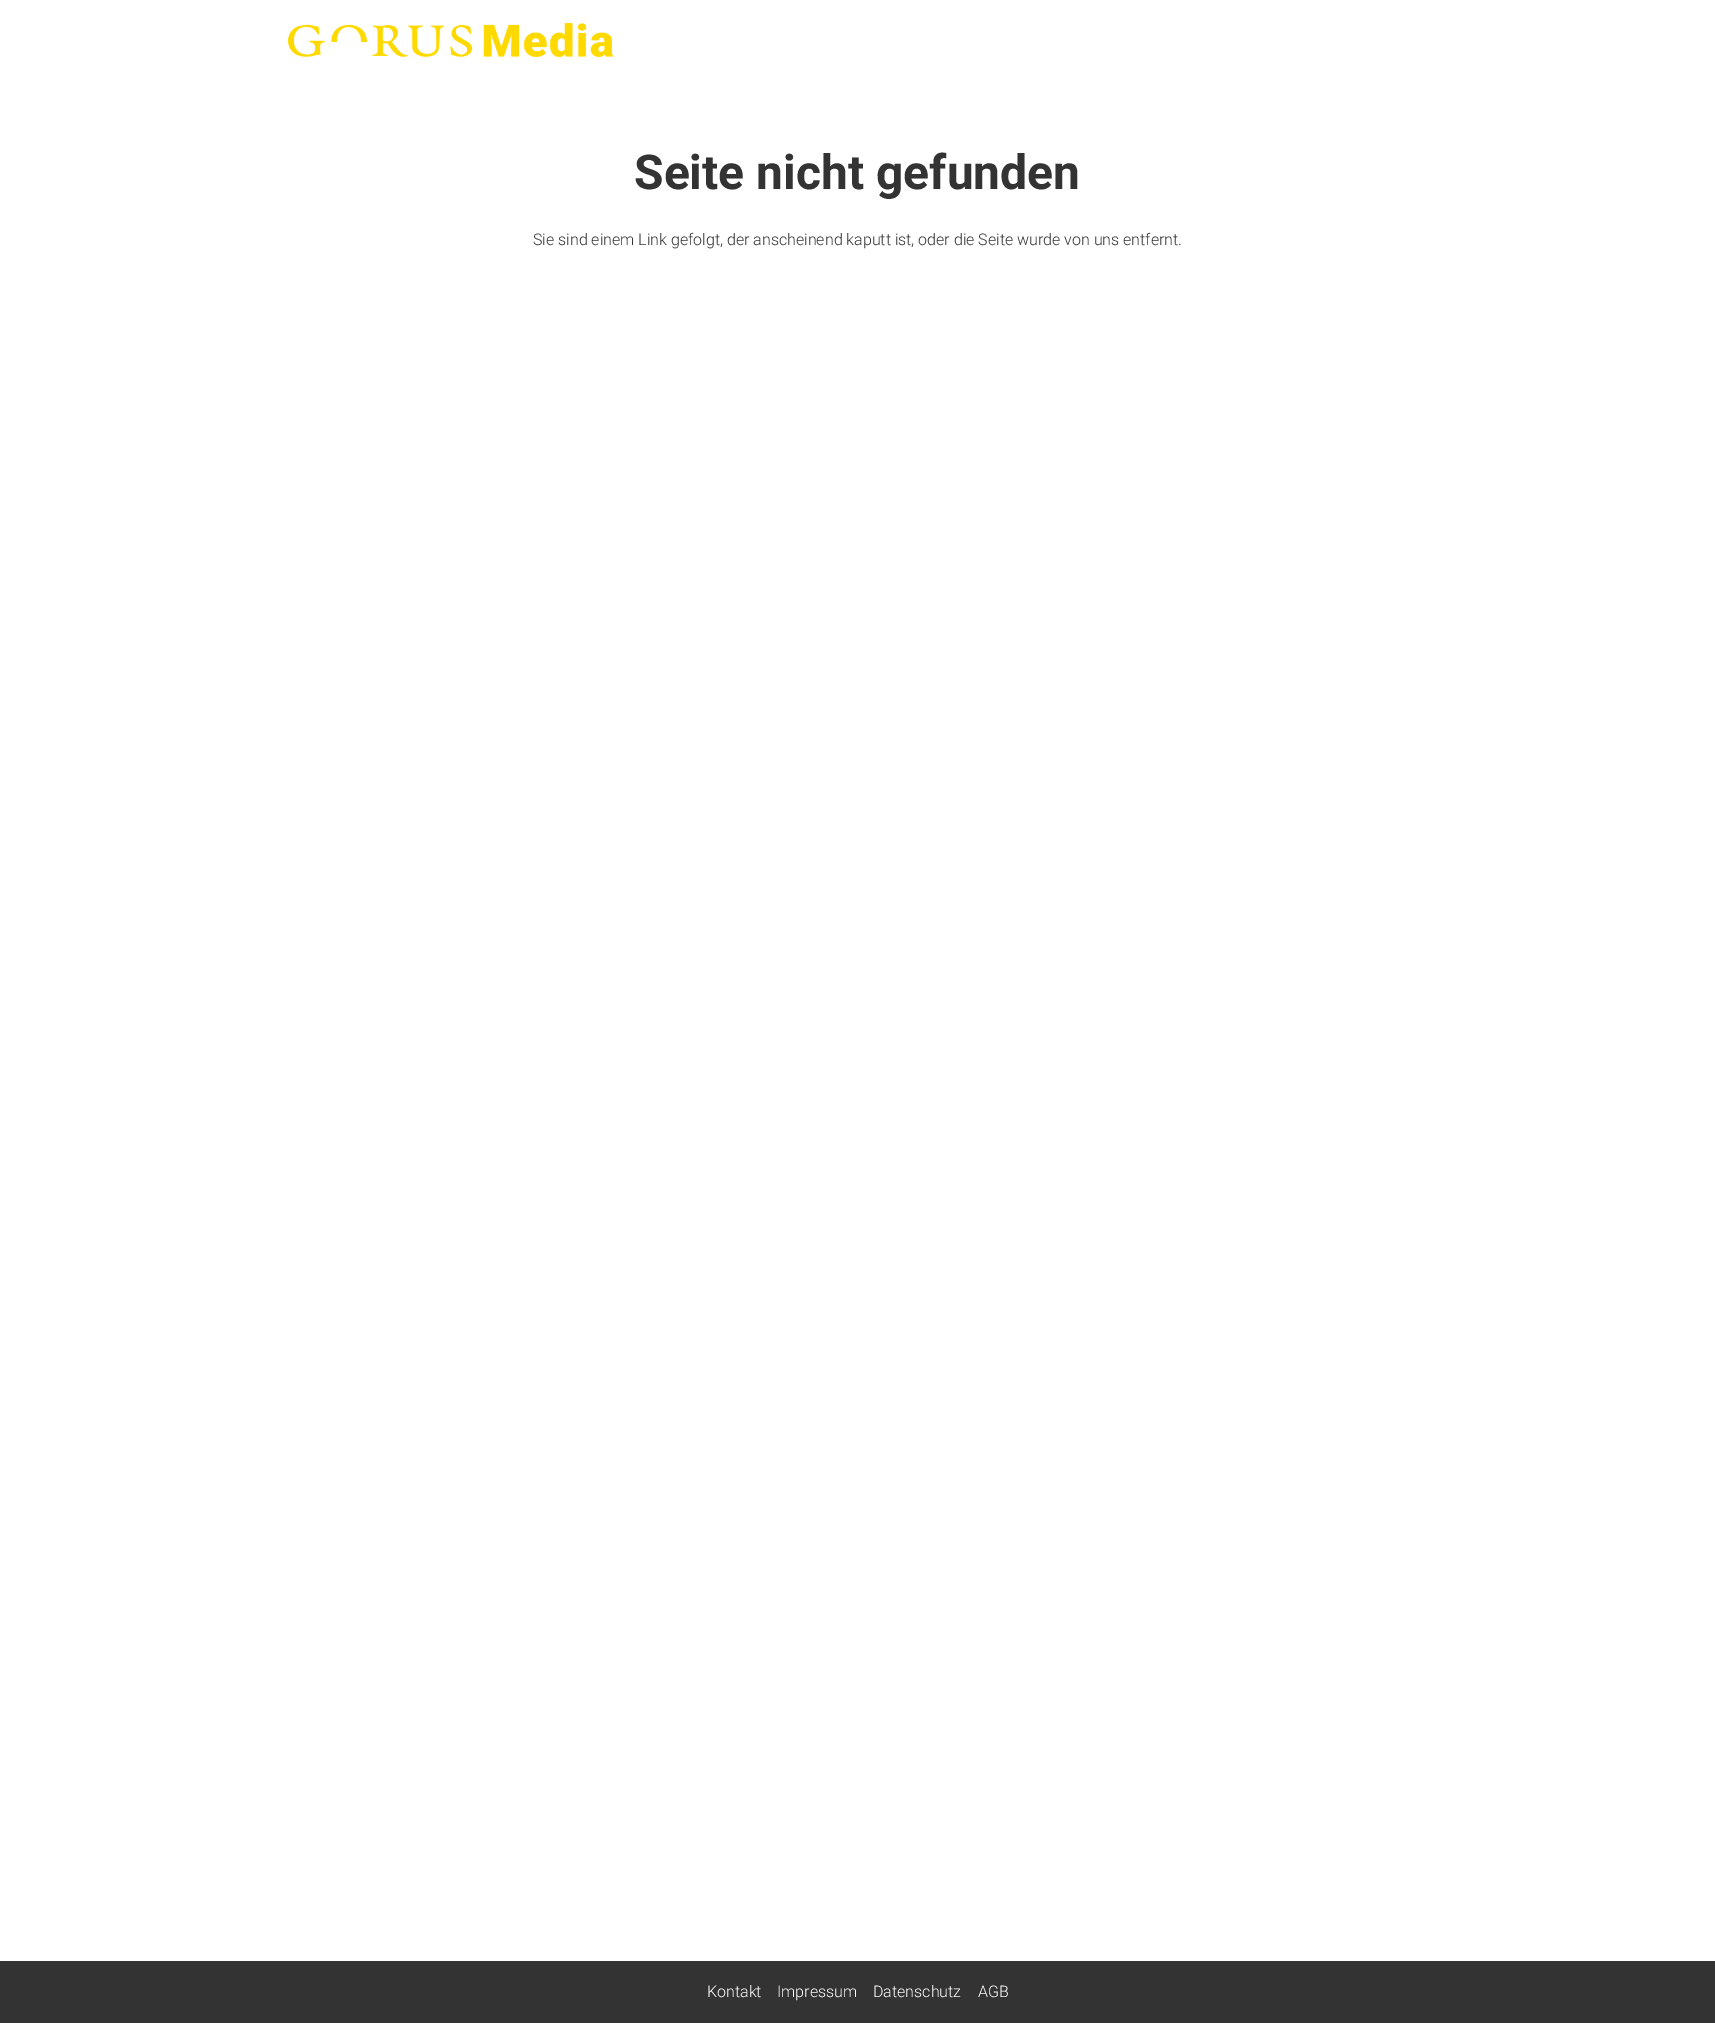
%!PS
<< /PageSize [1715 2023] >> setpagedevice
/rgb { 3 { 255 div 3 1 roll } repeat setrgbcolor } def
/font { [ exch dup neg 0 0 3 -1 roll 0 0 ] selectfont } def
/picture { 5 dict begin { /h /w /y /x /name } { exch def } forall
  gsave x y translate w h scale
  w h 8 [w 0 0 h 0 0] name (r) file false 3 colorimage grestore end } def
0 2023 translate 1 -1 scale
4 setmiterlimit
255 255 255 rgb
0 0 1715 2023 rectfill
(img/1.rgb) 287 22 327 36 picture
51 51 51 rgb
0 1961 1715 62 rectfill
/Roboto-Bold 48 font
634 189 moveto (Seite nicht gefunden) show
/Roboto-Light 16 font
533 245 moveto (Sie sind einem Link gefolgt, der anscheinend kaputt ist, oder die Seite wurde von uns entfernt.) show
255 255 255 rgb
[
  [(Kontakt) 707 1997]
  [(Impressum) 777 1997]
  [(Datenschutz) 873 1997]
  [(AGB) 978 1997]
] { aload pop moveto show } forall
showpage
